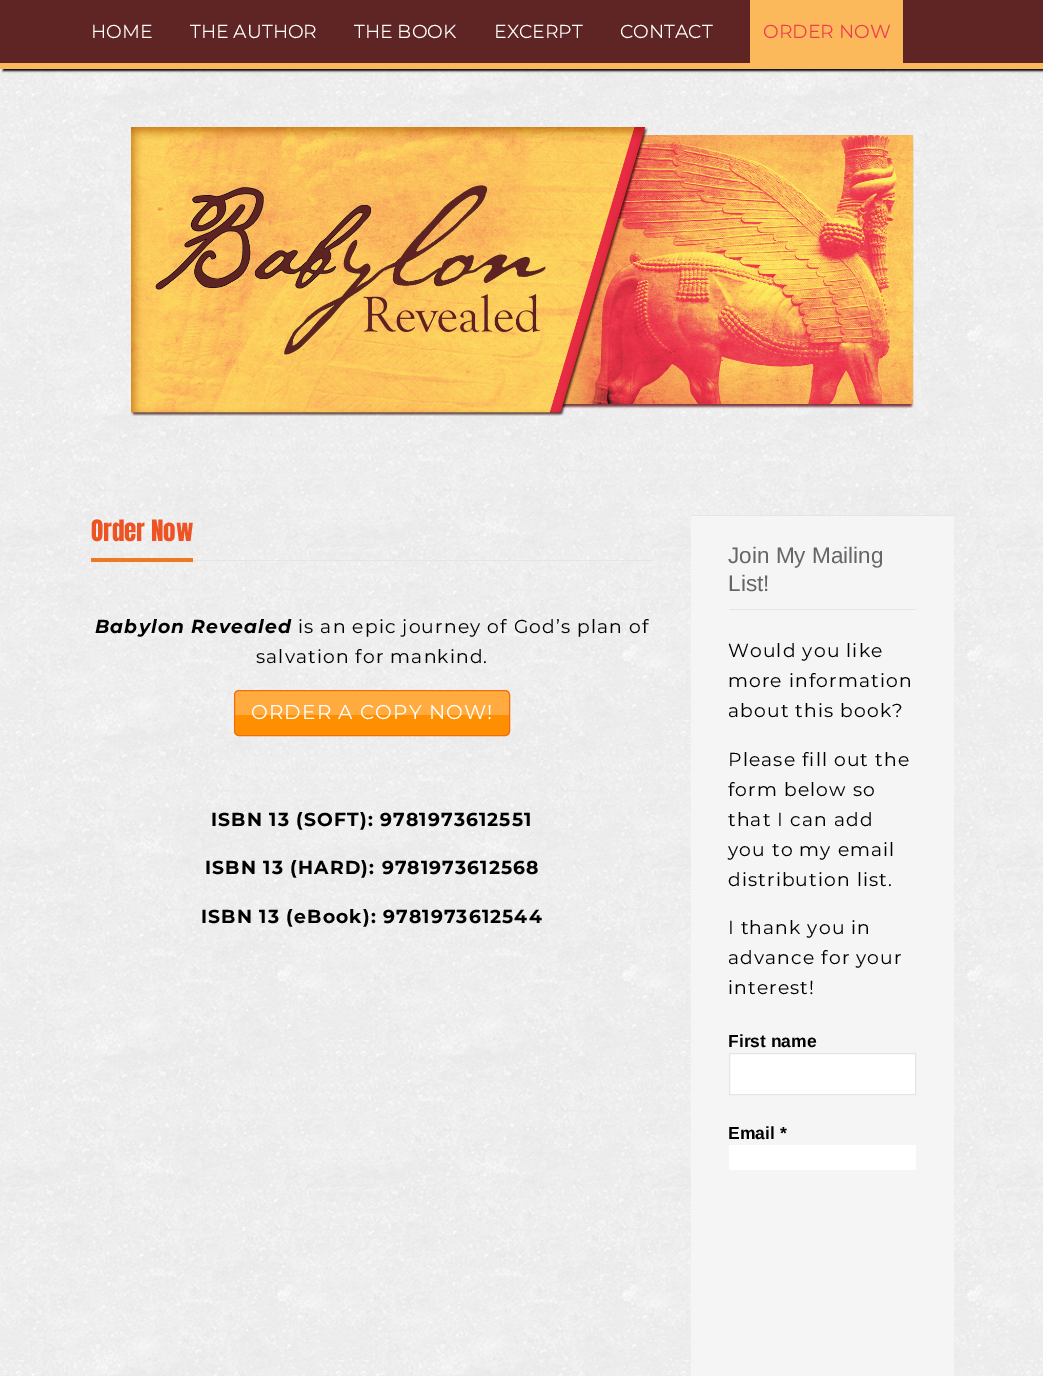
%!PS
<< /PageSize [1043 1376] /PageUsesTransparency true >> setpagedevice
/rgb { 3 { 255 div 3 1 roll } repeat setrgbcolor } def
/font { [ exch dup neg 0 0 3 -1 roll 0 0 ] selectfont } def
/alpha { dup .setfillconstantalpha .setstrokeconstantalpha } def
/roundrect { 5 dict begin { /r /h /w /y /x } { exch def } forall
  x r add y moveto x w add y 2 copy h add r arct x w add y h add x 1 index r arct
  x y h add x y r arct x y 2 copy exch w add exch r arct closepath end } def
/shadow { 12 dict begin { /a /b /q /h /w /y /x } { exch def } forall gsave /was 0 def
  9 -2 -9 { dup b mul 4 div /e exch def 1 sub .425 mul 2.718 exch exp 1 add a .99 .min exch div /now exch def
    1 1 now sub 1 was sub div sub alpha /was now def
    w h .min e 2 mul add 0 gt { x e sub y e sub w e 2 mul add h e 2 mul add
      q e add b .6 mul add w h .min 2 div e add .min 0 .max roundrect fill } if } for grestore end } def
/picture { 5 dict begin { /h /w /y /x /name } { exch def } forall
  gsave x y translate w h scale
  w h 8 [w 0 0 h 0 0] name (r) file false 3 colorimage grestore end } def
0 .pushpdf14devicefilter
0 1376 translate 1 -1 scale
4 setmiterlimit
255 255 255 rgb
0 0 1043 1376 rectfill
(img/1.rgb) 0 69 1043 1307 picture
0 0 0 rgb
3 3 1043 68 0 1 1 shadow
[
  [0 0 1043 63 95 37 36]
  [0 63 1043 6 251 185 92]
  [750 0 153 63 251 185 92]
] { aload pop rgb rectfill } forall
(img/2.rgb) 131 127 783 289 picture
229 229 229 rgb
193 560 461 1 rectfill
238 121 35 rgb
91 558 102 4 rectfill
255 143 0 rgb
234 690 276 46 5 roundrect fill
(img/3.rgb) 234 690 276 25 picture
242 108 13 rgb
234.5 690.5 275 45 4.5 roundrect stroke
[
  [691 516 263 860 245 245 245]
  [691 515 263 1 229 229 229]
  [729 609 187 1 229 229 229]
] { aload pop rgb rectfill } forall
255 255 255 rgb
729.5 1053.5 moveto 915.5 1053.5 lineto 915.5 1094.5 lineto 729.5 1094.5 lineto closepath gsave fill grestore
229 229 229 rgb
stroke
255 255 255 rgb
729 1145 187 25 rectfill
/Montserrat-Regular 18.75 font
[
  [(HOME) 91 38]
  [(THE AUTHOR) 190 38]
  [(THE BOOK) 354 38]
  [(EXCERPT) 494 38]
  [(CONTACT) 620 38]
] { aload pop moveto show } forall
238 61 81 rgb
763 38 moveto (ORDER NOW) show
/Anton-Regular 25 font
238 83 36 rgb
91 541 moveto (Order Now) show
/Montserrat-BoldItalic 18.75 font
0 0 0 rgb
95 633 moveto 1.1 0 (Babylon Revealed) ashow
/Montserrat-Regular 18.75 font
298 633 moveto 1.1 0 (is an epic journey of God’s plan of) ashow
256 663 moveto 1.1 0 (salvation for mankind.) ashow
/Montserrat-Regular 20 font
255 255 255 rgb
251 719 moveto 1.1 0 (ORDER A COPY NOW!) ashow
/Montserrat-Bold 18.75 font
0 0 0 rgb
211 826 moveto 1.1 0 (ISBN 13 \(SOFT\): 9781973612551) ashow
205 874 moveto 1.1 0 (ISBN 13 \(HARD\): 9781973612568) ashow
201 923 moveto 1.1 0 (ISBN 13 \(eBook\): 9781973612544) ashow
/LiberationSans-Regular 22.5 font
102 102 102 rgb
728 563 moveto (Join My Mailing) show
728 591 moveto (List!) show
/Montserrat-Regular 18.75 font
0 0 0 rgb
728 657 moveto 1.1 0 (Would you like) ashow
728 687 moveto 1.1 0 (more information) ashow
728 717 moveto 1.1 0 (about this book?) ashow
728 766 moveto 1.1 0 (Please fill out the) ashow
728 796 moveto 1.1 0 (form below so) ashow
728 826 moveto 1.1 0 (that I can add) ashow
728 856 moveto 1.1 0 (you to my email) ashow
728 886 moveto 1.1 0 (distribution list.) ashow
728 934 moveto 1.1 0 (I thank you in) ashow
728 964 moveto 1.1 0 (advance for your) ashow
728 994 moveto 1.1 0 (interest!) ashow
/LiberationSans-Bold 17.5 font
728 1047 moveto (First name) show
728 1139 moveto (Email *) show
.poppdf14devicefilter showpage
